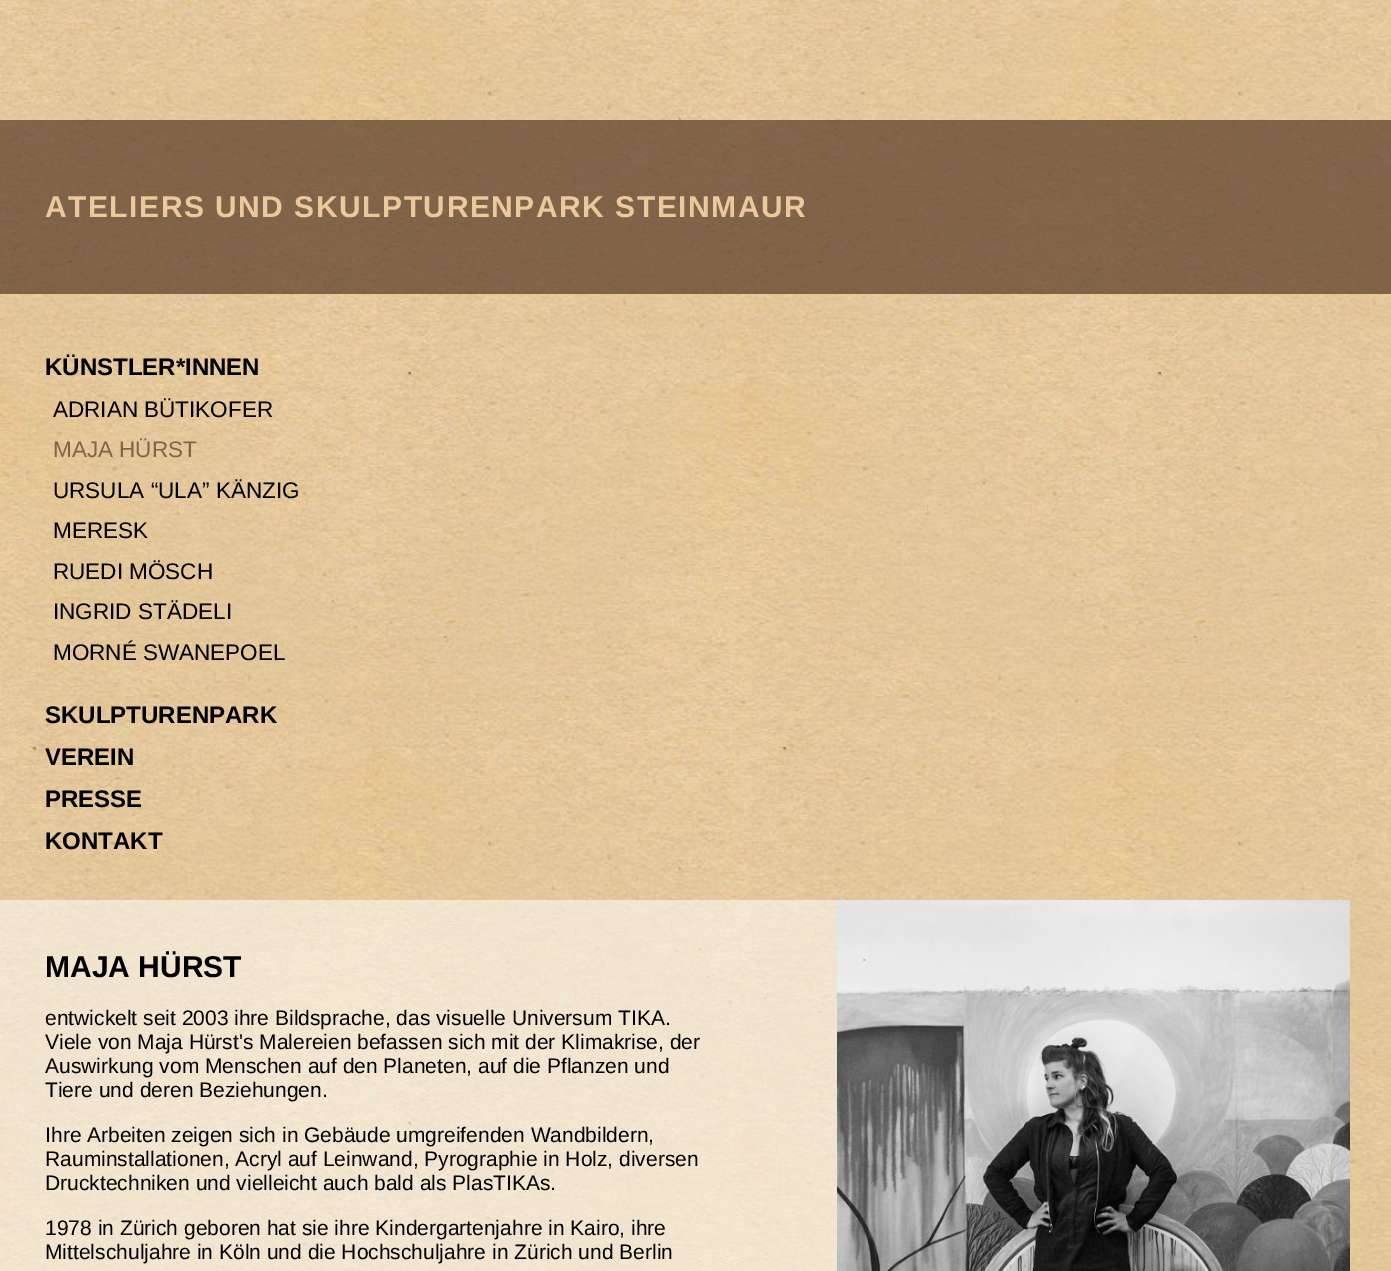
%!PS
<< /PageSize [1391 1271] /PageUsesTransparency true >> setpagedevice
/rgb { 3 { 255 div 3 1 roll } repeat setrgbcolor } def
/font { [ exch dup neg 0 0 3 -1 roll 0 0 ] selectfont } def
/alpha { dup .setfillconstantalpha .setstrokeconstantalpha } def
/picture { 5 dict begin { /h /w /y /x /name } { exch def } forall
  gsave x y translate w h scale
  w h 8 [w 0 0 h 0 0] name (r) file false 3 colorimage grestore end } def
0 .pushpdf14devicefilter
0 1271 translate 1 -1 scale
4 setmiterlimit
255 255 255 rgb
0 0 1391 1271 rectfill
(img/1.rgb) 0 0 1391 1271 picture
0.61 alpha
66 37 20 rgb
0 120 1391 174 rectfill
0.53 alpha
255 255 255 rgb
0 900 837 371 rectfill
1 alpha
(img/2.rgb) 837 900 513 371 picture
/LiberationSans-Bold 30 font
235 201 156 rgb
45 217 moveto 1.5 0 (ATELIERS UND SKULPTURENPARK STEINMAUR) ashow
/LiberationSans-Bold 24 font
0 0 0 rgb
45 375 moveto (KÜNSTLER*INNEN) show
/LiberationSans-Regular 22.5 font
53 417 moveto (ADRIAN BÜTIKOFER) show
129 100 72 rgb
53 457 moveto (MAJA HÜRST) show
0 0 0 rgb
[
  [(URSULA “ULA” KÄNZIG) 53 498]
  [(MERESK) 53 538]
  [(RUEDI MÖSCH) 53 579]
  [(INGRID STÄDELI) 53 619]
  [(MORNÉ SWANEPOEL) 53 660]
] { aload pop moveto show } forall
/LiberationSans-Bold 24 font
[
  [(SKULPTURENPARK) 45 723]
  [(VEREIN) 45 765]
  [(PRESSE) 45 807]
  [(KONTAKT) 45 849]
] { aload pop moveto show } forall
/LiberationSans-Bold 30 font
45 977 moveto (MAJA HÜRST) show
/LiberationSans-Regular 21 font
[
  [(entwickelt seit 2003 ihre Bildsprache, das visuelle Universum TIKA.) 45 1025]
  [(Viele von Maja Hürst's Malereien befassen sich mit der Klimakrise, der) 45 1049]
  [(Auswirkung vom Menschen auf den Planeten, auf die Pflanzen und) 45 1073]
  [(Tiere und deren Beziehungen.) 45 1097]
  [(Ihre Arbeiten zeigen sich in Gebäude umgreifenden Wandbildern,) 45 1142]
  [(Rauminstallationen, Acryl auf Leinwand, Pyrographie in Holz, diversen) 45 1166]
  [(Drucktechniken und vielleicht auch bald als PlasTIKAs.) 45 1190]
  [(1978 in Zürich geboren hat sie ihre Kindergartenjahre in Kairo, ihre) 45 1235]
  [(Mittelschuljahre in Köln und die Hochschuljahre in Zürich und Berlin) 45 1259]
] { aload pop moveto show } forall
.poppdf14devicefilter showpage
